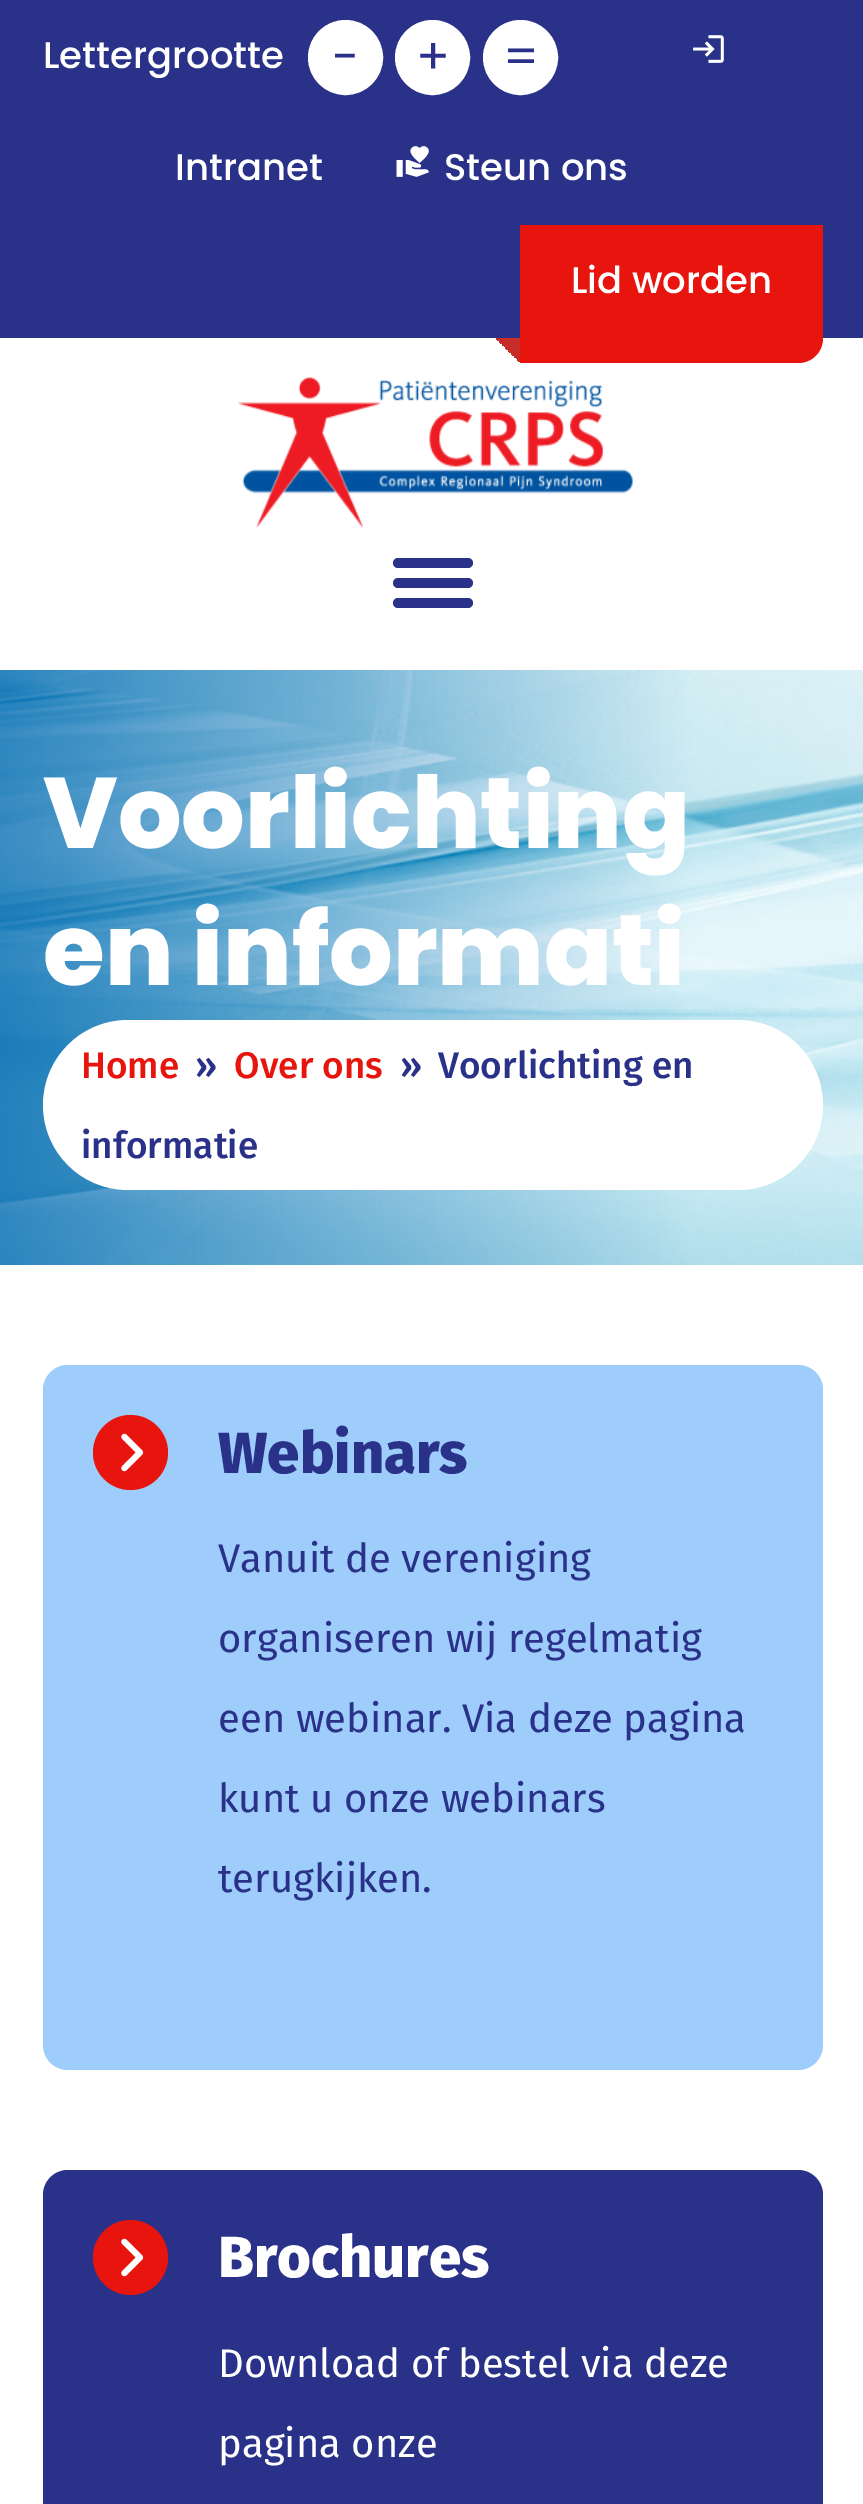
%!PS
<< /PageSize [863 2504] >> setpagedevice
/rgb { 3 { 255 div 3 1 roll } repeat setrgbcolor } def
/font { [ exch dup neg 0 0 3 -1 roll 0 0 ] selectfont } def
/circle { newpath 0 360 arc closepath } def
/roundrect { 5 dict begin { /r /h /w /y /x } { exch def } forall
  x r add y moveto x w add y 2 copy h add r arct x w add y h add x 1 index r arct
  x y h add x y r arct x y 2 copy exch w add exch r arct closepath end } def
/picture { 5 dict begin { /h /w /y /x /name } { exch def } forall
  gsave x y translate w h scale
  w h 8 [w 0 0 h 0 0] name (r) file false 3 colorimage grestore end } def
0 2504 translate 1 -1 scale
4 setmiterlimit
255 255 255 rgb
0 0 863 2504 rectfill
41 49 137 rgb
0 0 863 338 rectfill
255 255 255 rgb
345.5 57.5 36 circle gsave fill grestore
3 setlinewidth
stroke
432.5 57.5 36 circle gsave fill grestore
stroke
520.5 57.5 36 circle gsave fill grestore
stroke
(img/1.rgb) 693 35 31 28 picture
(img/2.rgb) 396 146 33 31 picture
231 21 13 rgb
520 225 moveto 823 225 lineto 823 338 lineto 823 352 812 363 798 363 curveto 520 363 lineto closepath fill
gsave 496 338 moveto 520 338 lineto 520 362 lineto 496 362 lineto closepath clip newpath
<< /ShadingType 2 /ColorSpace /DeviceRGB /Coords [520 338 495 363] /Extend [true true] /Function << /FunctionType 3 /Domain [0 1] /Functions [<< /FunctionType 2 /Domain [0 1] /C0 [0.776 0.176 0.161] /C1 [0.776 0.176 0.161] /N 1 >> << /FunctionType 2 /Domain [0 1] /C0 [1 1 1] /C1 [1 1 1] /N 1 >>] /Bounds [0.5] /Encode [0 1 0 1] >> >> shfill grestore
(img/3.rgb) 238 377 395 152 picture
41 49 137 rgb
393 558 80 10 5 roundrect fill
393 578 80 10 5 roundrect fill
393 598 80 10 5 roundrect fill
(img/4.rgb) 0 670 863 595 picture
255 255 255 rgb
43 1020 780 170 85 roundrect fill
159 205 251 rgb
43 1365 780 705 25 roundrect fill
231 21 13 rgb
130.5 1452.5 37.5 circle fill
(img/5.rgb) 121 1433 23 39 picture
41 49 137 rgb
43 2170 780 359 25 roundrect fill
231 21 13 rgb
130.5 2257.5 37.5 circle fill
(img/5.rgb) 121 2238 23 39 picture
/Poppins-Medium 37 font
255 255 255 rgb
43 68 moveto (Lettergrootte) show
/Poppins-Regular 50 font
42 49 137 rgb
[
  [(-) 332 74]
  [(+) 416 74]
  [(=) 503 74]
] { aload pop moveto show } forall
/Poppins-Medium 37 font
255 255 255 rgb
[
  [(Intranet) 175 180]
  [(Steun ons) 444 180]
  [(Lid worden) 571 293]
] { aload pop moveto show } forall
/Poppins-ExtraBold 100 font
43 848 moveto (Voorlichting) show
43 985 moveto (en informati) show
/FiraSans-Medium 37 font
231 21 13 rgb
81 1078 moveto (Home) show
42 49 137 rgb
195 1078 moveto (») show
231 21 13 rgb
234 1078 moveto (Over ons) show
42 49 137 rgb
[
  [(») 400 1078]
  [(Voorlichting en) 438 1078]
  [(informatie) 81 1158]
] { aload pop moveto show } forall
/FiraSans-ExtraBold 58 font
218 1473 moveto (Webinars) show
/FiraSans-Regular 40 font
[
  [(Vanuit de vereniging) 218 1572]
  [(organiseren wij regelmatig) 218 1652]
  [(een webinar. Via deze pagina) 218 1732]
  [(kunt u onze webinars) 218 1812]
  [(terugkijken.) 218 1892]
] { aload pop moveto show } forall
/FiraSans-ExtraBold 58 font
255 255 255 rgb
218 2277 moveto (Brochures) show
/FiraSans-Regular 40 font
218 2377 moveto (Download of bestel via deze) show
218 2457 moveto (pagina onze) show
showpage
